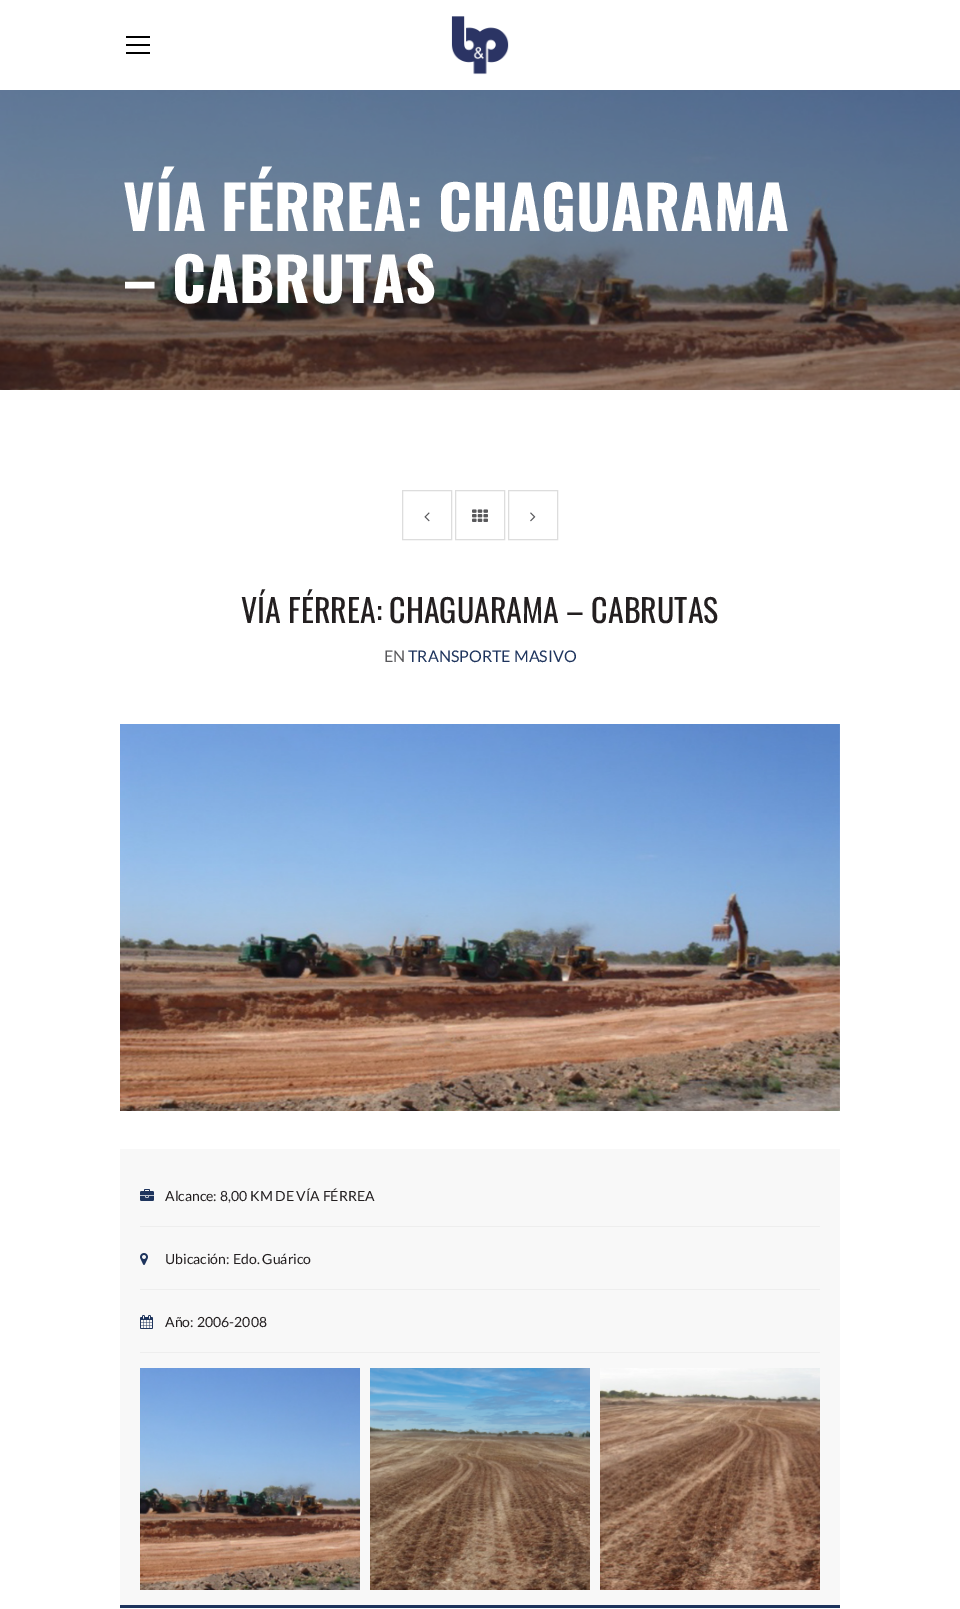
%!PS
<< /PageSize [960 1609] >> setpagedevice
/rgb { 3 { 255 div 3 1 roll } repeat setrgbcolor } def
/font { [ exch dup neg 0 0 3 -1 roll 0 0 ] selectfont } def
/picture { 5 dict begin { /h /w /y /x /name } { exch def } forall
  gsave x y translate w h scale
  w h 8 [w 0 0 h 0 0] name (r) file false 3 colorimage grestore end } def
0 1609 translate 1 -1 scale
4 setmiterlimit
255 255 255 rgb
0 0 960 1609 rectfill
[
  [126 36 24 2 0 0 0]
  [126 44 24 2 0 0 0]
  [126 52 24 2 0 0 0]
] { aload pop rgb rectfill } forall
(img/1.rgb) 451 16 58 59 picture
(img/2.rgb) 0 90 960 300 picture
221 221 221 rgb
402.5 490.5 49 49 rectstroke
(img/3.rgb) 424 512 6 10 picture
455.5 490.5 49 49 rectstroke
(img/4.rgb) 472 509 16 13 picture
508.5 490.5 49 49 rectstroke
(img/5.rgb) 530 512 6 10 picture
(img/6.rgb) 120 724 720 387 picture
[
  [120 1149 720 456 248 248 248]
  [120 1605 720 3 30 52 93]
  [140 1226 680 1 238 238 238]
] { aload pop rgb rectfill } forall
(img/7.rgb) 140 1189 14 12 picture
140 1289 680 1 rectfill
(img/8.rgb) 140 1253 8 12 picture
140 1352 680 1 rectfill
(img/9.rgb) 140 1315 13 14 picture
(img/10.rgb) 140 1368 220 222 picture
(img/11.rgb) 370 1368 220 222 picture
(img/12.rgb) 600 1368 220 222 picture
/Oswald-Bold 60 font
255 255 255 rgb
123 231 moveto (VÍA FÉRREA: CHAGUARAMA) show
123 303 moveto (– CABRUTAS) show
/Oswald-Regular 32 font
35 31 32 rgb
241 623 moveto (VÍA FÉRREA: CHAGUARAMA – CABRUTAS) show
/Lato-Regular 16 font
88 88 91 rgb
384 662 moveto (EN) show
30 52 93 rgb
408 662 moveto (TRANSPORTE MASIVO) show
/Lato-Regular 14 font
35 31 32 rgb
[
  [(Alcance:) 165 1201]
  [(8,00 KM DE VÍA FÉRREA) 220 1201]
  [(Ubicación:) 165 1264]
  [(Edo. Guárico) 233 1264]
  [(Año:) 165 1327]
  [(2006-2008) 197 1327]
] { aload pop moveto show } forall
showpage
